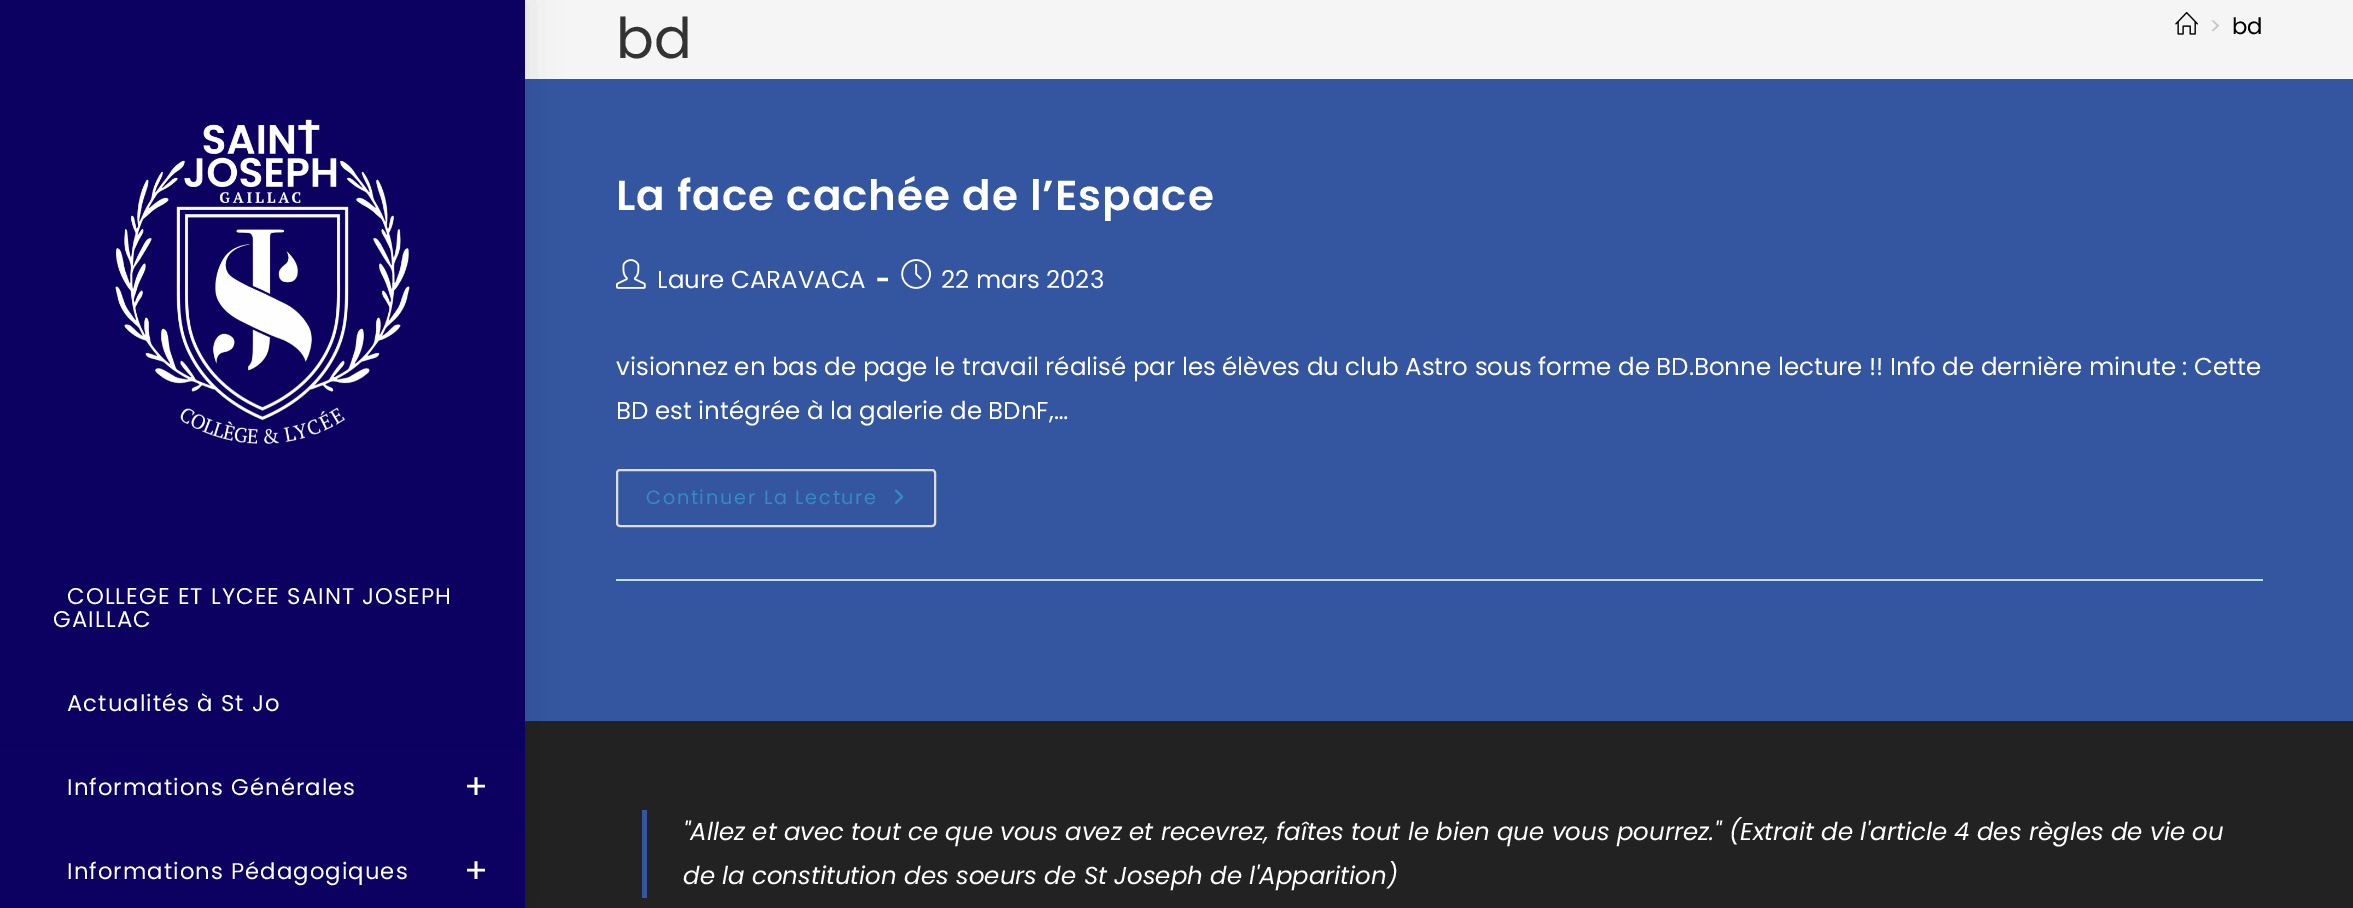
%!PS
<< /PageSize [2353 908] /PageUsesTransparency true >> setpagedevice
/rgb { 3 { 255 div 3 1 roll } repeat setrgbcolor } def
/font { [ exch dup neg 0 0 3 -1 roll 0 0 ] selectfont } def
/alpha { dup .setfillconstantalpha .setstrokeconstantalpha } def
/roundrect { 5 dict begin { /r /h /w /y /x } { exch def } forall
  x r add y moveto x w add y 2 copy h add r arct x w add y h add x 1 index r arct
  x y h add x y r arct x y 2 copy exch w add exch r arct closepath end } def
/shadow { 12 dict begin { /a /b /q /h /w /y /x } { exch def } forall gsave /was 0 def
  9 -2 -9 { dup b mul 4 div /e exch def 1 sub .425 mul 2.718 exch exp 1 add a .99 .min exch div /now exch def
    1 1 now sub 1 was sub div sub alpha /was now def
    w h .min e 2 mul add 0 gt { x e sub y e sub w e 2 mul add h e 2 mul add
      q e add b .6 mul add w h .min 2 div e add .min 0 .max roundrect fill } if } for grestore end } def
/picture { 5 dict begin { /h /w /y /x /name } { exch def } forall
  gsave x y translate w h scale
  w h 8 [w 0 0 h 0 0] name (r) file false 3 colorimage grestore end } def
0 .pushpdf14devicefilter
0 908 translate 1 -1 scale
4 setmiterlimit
52 86 161 rgb
0 0 2353 908 rectfill
245 245 245 rgb
525 0 1828 79 rectfill
(img/1.rgb) 2175 11 23 24 picture
195 225 229 rgb
616 579 1647 2 rectfill
(img/2.rgb) 616 259 30 30 picture
(img/3.rgb) 901 259 30 30 picture
221 221 221 rgb
2 setlinewidth
617 470 318 56 3 roundrect stroke
(img/4.rgb) 895 489 9 15 picture
34 34 34 rgb
525 721 1828 187 rectfill
0 0 0 rgb
0 0 525 908 0 17.5 0.1 shadow
12 0 96 rgb
0 0 525 908 rectfill
(img/5.rgb) 115 119 295 325 picture
[
  [0 660 525 2 11 0 91]
  [0 744 525 2 11 0 91]
  [0 828 525 2 11 0 91]
  [642 810 5 88 52 86 161]
] { aload pop rgb rectfill } forall
/Poppins-Regular 56 font
51 51 51 rgb
616 58 moveto (bd) show
/Poppins-Regular 22.75 font
198 198 198 rgb
2209 34 moveto (>) show
2 2 2 rgb
2232 34 moveto (bd) show
/Poppins-SemiBold 42 font
255 255 255 rgb
616 210 moveto 1.05 0 (La face cachée de l’Espace) ashow
/Poppins-Regular 24.5 font
657 288 moveto (Laure CARAVACA) show
/Poppins-Bold 24.5 font
876 288 moveto (-) show
/Poppins-Regular 24.5 font
[
  [(22 mars 2023) 941 288]
  [(visionnez en bas de page le travail réalisé par les élèves du club Astro sous forme de BD.Bonne lecture !! Info de dernière minute : Cette) 616 375]
  [(BD est intégrée à la galerie de BDnF,…) 616 419]
] { aload pop moveto show } forall
/Poppins-Regular 19.25 font
56 136 197 rgb
646 504 moveto 1.75 0 (Continuer La Lecture) ashow
/Poppins-Regular 22.75 font
255 255 255 rgb
67 604 moveto 1.05 0 (COLLEGE ET LYCEE SAINT JOSEPH) ashow
53 627 moveto 1.05 0 (GAILLAC) ashow
67 711 moveto 1.05 0 (Actualités à St Jo) ashow
67 795 moveto 1.05 0 (Informations Générales) ashow
/Poppins-Regular 35 font
464 799 moveto 1.05 0 (+) ashow
/Poppins-Regular 22.75 font
67 879 moveto 1.05 0 (Informations Pédagogiques) ashow
/Poppins-Regular 35 font
464 883 moveto 1.05 0 (+) ashow
/Poppins-Italic 24.5 font
683 840 moveto ("Allez et avec tout ce que vous avez et recevrez, faîtes tout le bien que vous pourrez." \(Extrait de l'article 4 des règles de vie ou) show
683 884 moveto (de la constitution des soeurs de St Joseph de l'Apparition\)) show
.poppdf14devicefilter showpage
